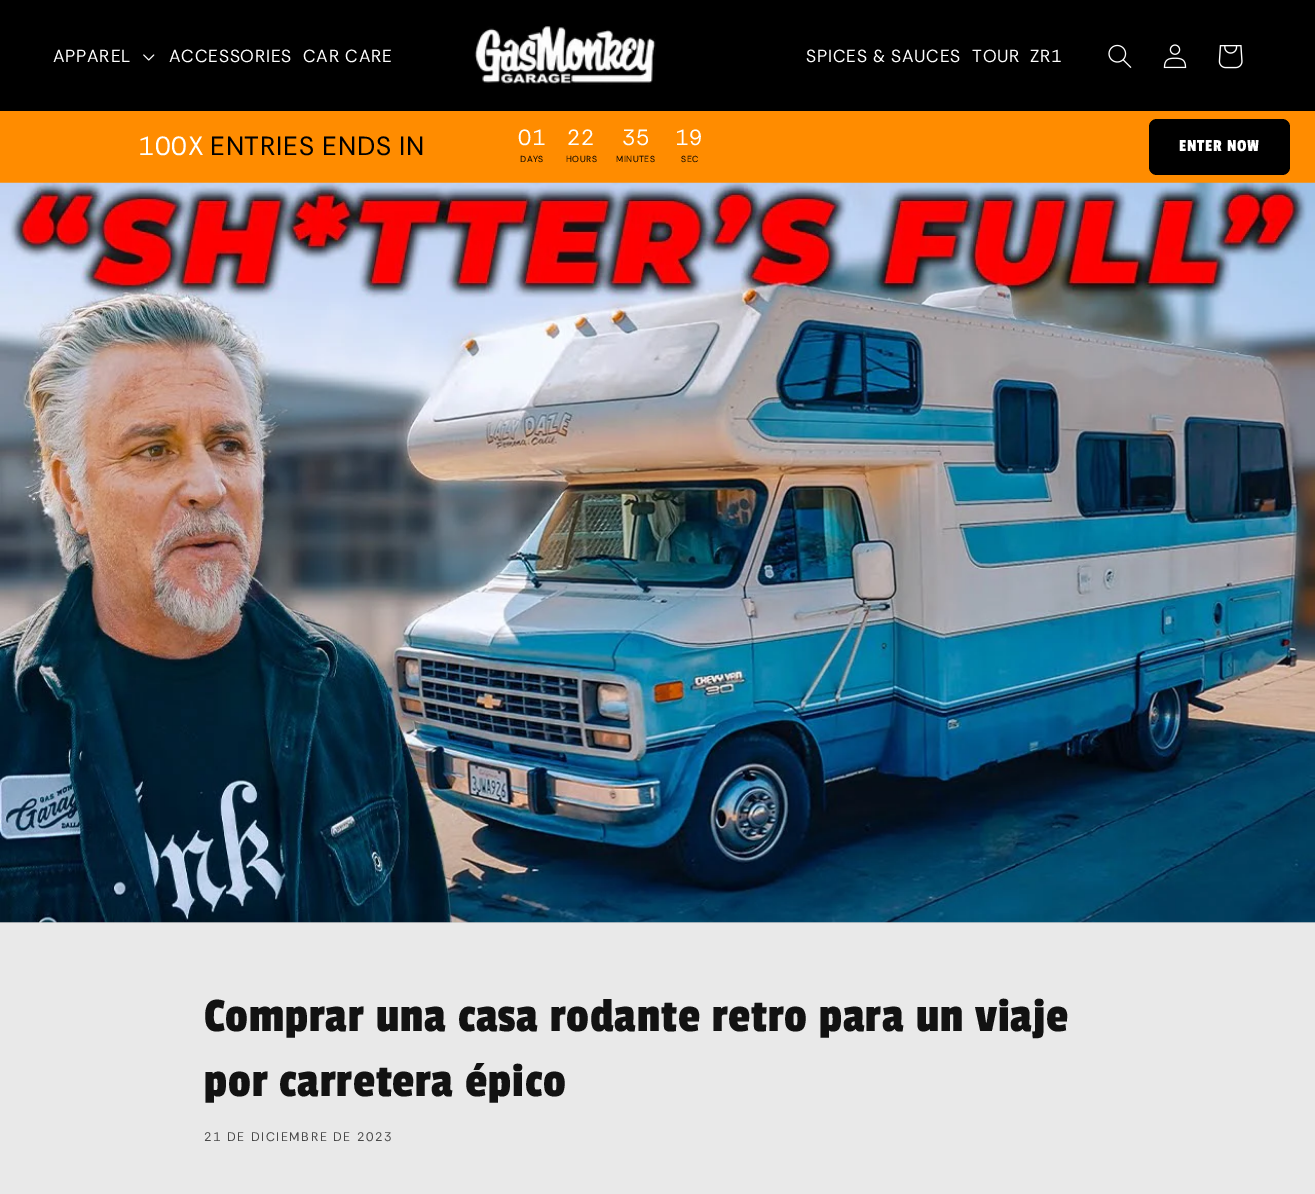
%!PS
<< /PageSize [1315 1194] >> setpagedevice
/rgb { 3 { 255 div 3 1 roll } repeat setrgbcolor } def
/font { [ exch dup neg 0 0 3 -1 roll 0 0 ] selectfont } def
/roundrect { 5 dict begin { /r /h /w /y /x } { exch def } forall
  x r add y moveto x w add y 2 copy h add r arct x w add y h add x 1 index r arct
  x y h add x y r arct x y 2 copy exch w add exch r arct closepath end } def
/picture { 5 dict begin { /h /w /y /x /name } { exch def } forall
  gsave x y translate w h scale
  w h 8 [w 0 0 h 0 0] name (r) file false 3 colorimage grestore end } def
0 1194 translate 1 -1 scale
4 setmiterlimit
233 233 233 rgb
0 0 1315 1194 rectfill
0 0 0 rgb
0 0 1315 111 rectfill
(img/1.rgb) 143 54 12 7 picture
(img/2.rgb) 474 26 182 59 picture
(img/3.rgb) 1108 44 24 24 picture
(img/4.rgb) 1163 44 24 25 picture
(img/5.rgb) 1218 45 25 24 picture
255 140 0 rgb
0 111 1315 72 rectfill
0 0 0 rgb
1149 119 141 56 8 roundrect fill
214 214 214 rgb
0 922 1315 1 rectfill
(img/6.rgb) 0 182 1315 741 picture
/RethinkSans-Regular 17.5 font
255 255 255 rgb
53 62 moveto 0.75 0 (APPAREL) ashow
169 62 moveto 0.75 0 (ACCESSORIES) ashow
303 62 moveto 0.75 0 (CAR CARE) ashow
806 62 moveto 0.75 0 (SPICES & SAUCES) ashow
972 62 moveto 0.75 0 (TOUR) ashow
1030 62 moveto 0.75 0 (ZR1) ashow
/RethinkSans-Regular 26.25 font
138 155 moveto 0.75 0 (100X) ashow
0 0 0 rgb
210 155 moveto 0.75 0 (ENTRIES ENDS IN) ashow
/RethinkSans-Regular 22 font
255 255 255 rgb
518 145 moveto 0.75 0 (01) ashow
/RethinkSans-Regular 8.75 font
0 0 0 rgb
520 162 moveto 0.5 0 (DAYS) ashow
/RethinkSans-Regular 22 font
255 255 255 rgb
567 145 moveto 0.75 0 (22) ashow
/RethinkSans-Regular 8.75 font
0 0 0 rgb
566 162 moveto 0.5 0 (HOURS) ashow
/RethinkSans-Regular 22 font
255 255 255 rgb
622 145 moveto 0.75 0 (35) ashow
/RethinkSans-Regular 8.75 font
0 0 0 rgb
616 162 moveto 0.5 0 (MINUTES) ashow
/RethinkSans-Regular 22 font
255 255 255 rgb
675 145 moveto 0.75 0 (19) ashow
/RethinkSans-Regular 8.75 font
0 0 0 rgb
681 162 moveto 0.5 0 (SEC) ashow
/PassionOne-Regular 17.5 font
255 255 255 rgb
1179 151 moveto 0.75 0 (ENTER NOW) ashow
/PassionOne-Regular 50 font
18 18 18 rgb
204 1031 moveto 0.75 0 (Comprar una casa rodante retro para un viaje) ashow
204 1096 moveto 0.75 0 (por carretera épico) ashow
/RethinkSans-Regular 12.5 font
72 72 72 rgb
204 1141 moveto 1.6 0 (21 DE DICIEMBRE DE 2023) ashow
showpage
